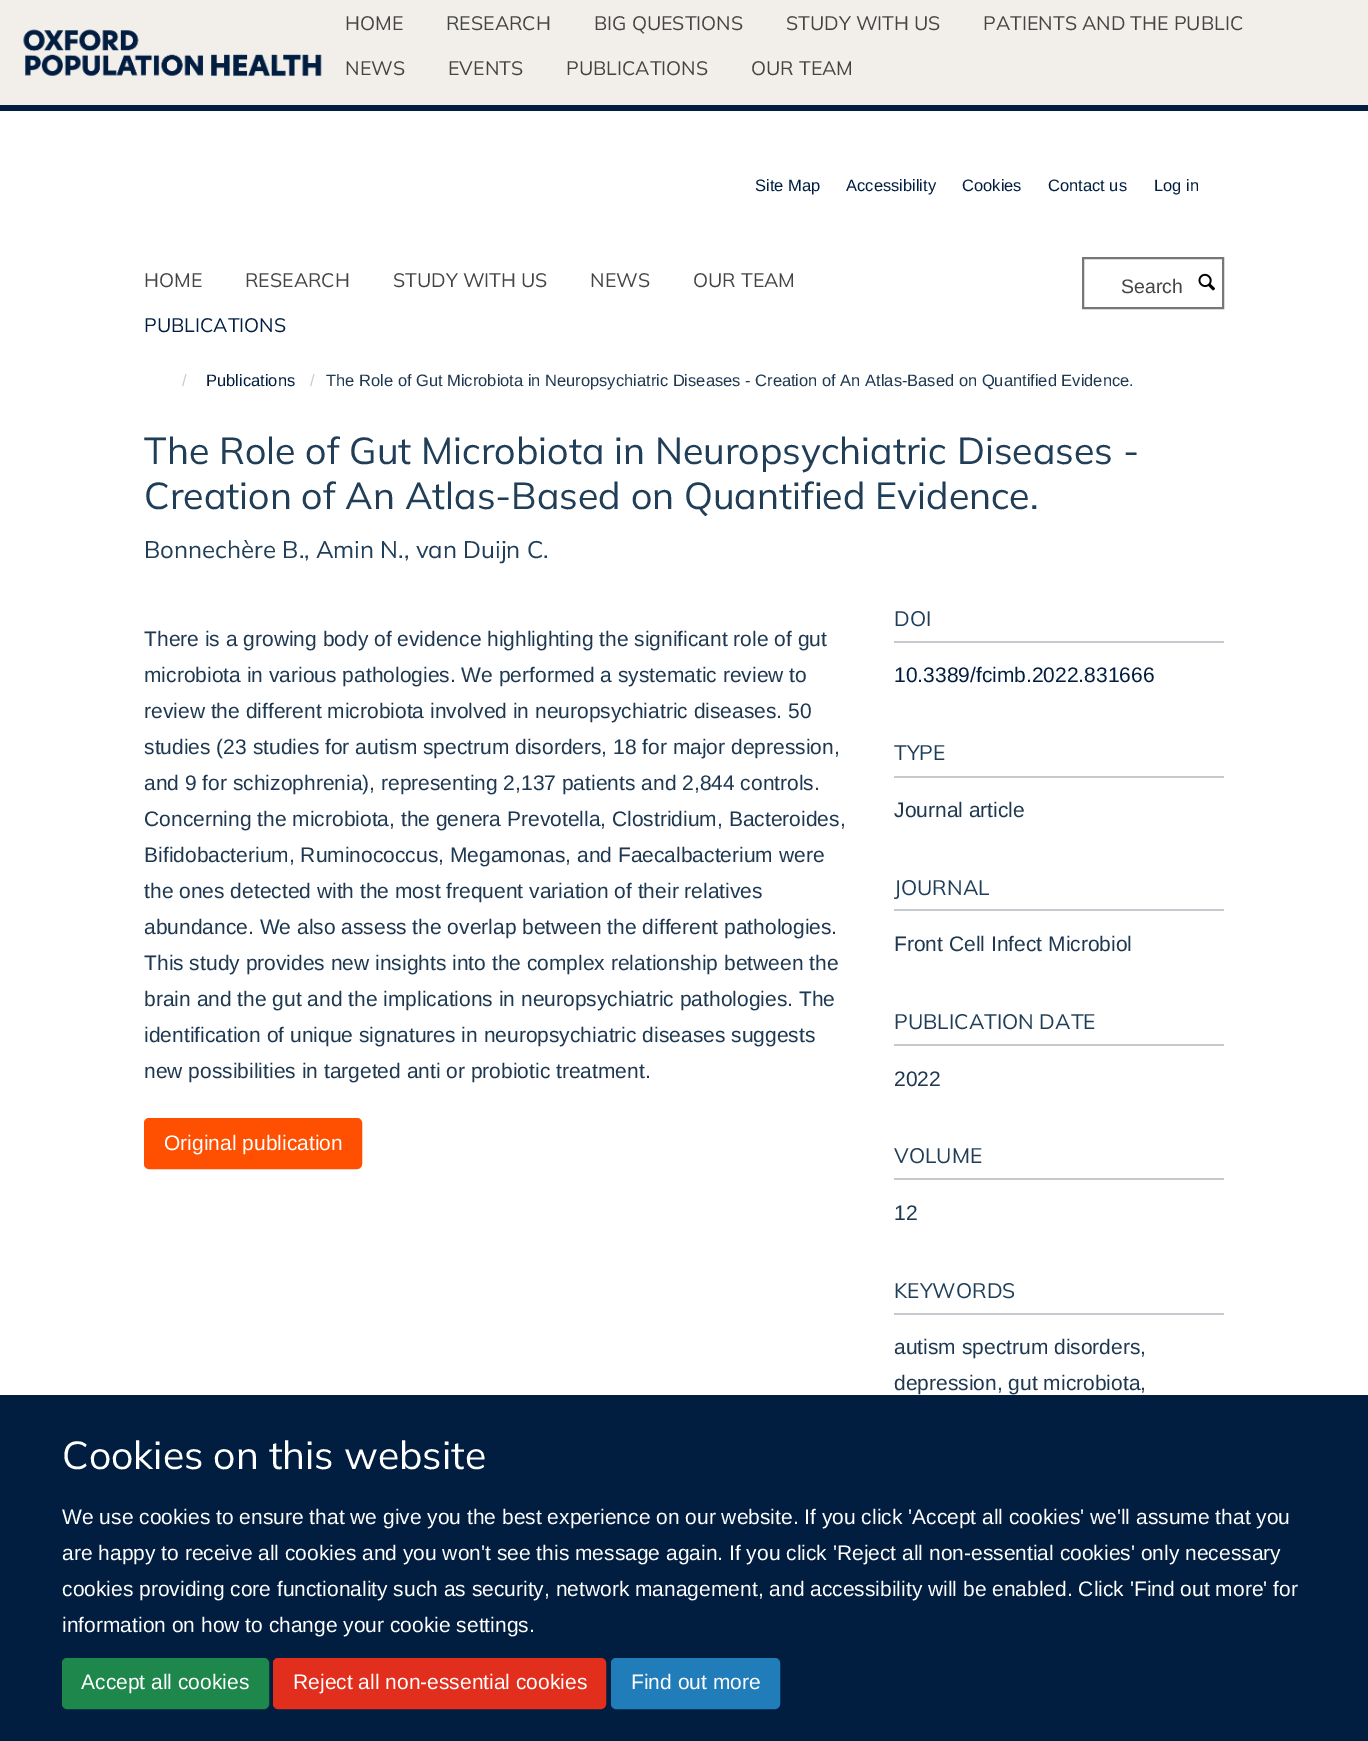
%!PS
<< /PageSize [1368 1741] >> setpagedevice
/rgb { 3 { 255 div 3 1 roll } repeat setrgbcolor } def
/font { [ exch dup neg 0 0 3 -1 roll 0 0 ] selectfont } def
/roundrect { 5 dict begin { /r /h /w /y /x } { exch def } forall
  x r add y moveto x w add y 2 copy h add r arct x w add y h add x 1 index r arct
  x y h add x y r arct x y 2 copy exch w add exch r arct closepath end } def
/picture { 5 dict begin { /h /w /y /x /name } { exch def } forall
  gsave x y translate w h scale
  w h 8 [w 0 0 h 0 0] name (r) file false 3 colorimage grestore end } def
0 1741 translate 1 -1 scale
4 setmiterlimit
255 255 255 rgb
0 0 1368 1741 rectfill
242 239 235 rgb
0 0 1368 105 rectfill
1 30 65 rgb
0 105 1368 6 rectfill
(img/1.rgb) 23 29 299 48 picture
119 119 119 rgb
2 setlinewidth
1083 258 140 50 rectstroke
(img/2.rgb) 1198 273 17 18 picture
254 80 0 rgb
145 1119 216 49 4 roundrect gsave fill grestore
stroke
[
  [894 641 330 2 198 202 207]
  [894 776 330 2 198 202 207]
  [894 909 330 2 198 202 207]
  [894 1044 330 2 198 202 207]
  [894 1178 330 2 198 202 207]
  [894 1313 330 2 198 202 207]
  [0 1395 1368 346 1 30 65]
] { aload pop rgb rectfill } forall
30 135 75 rgb
63 1659 205 49 4 roundrect gsave fill grestore
stroke
226 46 28 rgb
274 1659 331 49 4 roundrect gsave fill grestore
stroke
33 124 186 rgb
612 1659 167 49 4 roundrect gsave fill grestore
stroke
/Mulish-Regular 19.5 font
68 68 68 rgb
[
  [(HOME) 345 30]
  [(RESEARCH) 446 30]
  [(BIG QUESTIONS) 594 30]
  [(STUDY WITH US) 786 30]
  [(PATIENTS AND THE PUBLIC) 983 30]
  [(NEWS) 345 75]
  [(EVENTS) 448 75]
  [(PUBLICATIONS) 566 75]
  [(OUR TEAM) 751 75]
] { aload pop moveto show } forall
/LiberationSans-Regular 16.5 font
1 30 65 rgb
[
  [(Site Map) 755 191]
  [(Accessibility) 846 191]
  [(Cookies) 962 191]
  [(Contact us) 1048 191]
  [(Log in) 1154 191]
] { aload pop moveto show } forall
/Mulish-Regular 19.5 font
68 68 68 rgb
[
  [(HOME) 144 287]
  [(RESEARCH) 245 287]
  [(STUDY WITH US) 393 287]
  [(NEWS) 590 287]
  [(OUR TEAM) 693 287]
] { aload pop moveto show } forall
1 30 65 rgb
144 332 moveto (PUBLICATIONS) show
/LiberationSans-Regular 19.5 font
68 68 68 rgb
1121 293 moveto (Search) show
/LiberationSans-Regular 16.5 font
204 204 204 rgb
182 386 moveto (/) show
1 30 65 rgb
206 386 moveto (Publications) show
204 204 204 rgb
310 386 moveto (/) show
29 56 80 rgb
326 386 moveto (The Role of Gut Microbiota in Neuropsychiatric Diseases - Creation of An Atlas-Based on Quantified Evidence.) show
/Mulish-Regular 37.5 font
32 62 88 rgb
144 464 moveto (The Role of Gut Microbiota in Neuropsychiatric Diseases -) show
144 509 moveto (Creation of An Atlas-Based on Quantified Evidence.) show
/Mulish-Regular 24 font
144 558 moveto (Bonnechère B., Amin N., van Duijn C.) show
/LiberationSans-Regular 21 font
29 56 80 rgb
[
  [(There is a growing body of evidence highlighting the significant role of gut) 144 646]
  [(microbiota in various pathologies. We performed a systematic review to) 144 682]
  [(review the different microbiota involved in neuropsychiatric diseases. 50) 144 718]
  [(studies \(23 studies for autism spectrum disorders, 18 for major depression,) 144 754]
  [(and 9 for schizophrenia\), representing 2,137 patients and 2,844 controls.) 144 790]
  [(Concerning the microbiota, the genera Prevotella, Clostridium, Bacteroides,) 144 826]
  [(Bifidobacterium, Ruminococcus, Megamonas, and Faecalbacterium were) 144 862]
  [(the ones detected with the most frequent variation of their relatives) 144 898]
  [(abundance. We also assess the overlap between the different pathologies.) 144 934]
  [(This study provides new insights into the complex relationship between the) 144 970]
  [(brain and the gut and the implications in neuropsychiatric pathologies. The) 144 1006]
  [(identification of unique signatures in neuropsychiatric diseases suggests) 144 1042]
  [(new possibilities in targeted anti or probiotic treatment.) 144 1078]
] { aload pop moveto show } forall
255 255 255 rgb
164 1150 moveto (Original publication) show
/Mulish-Regular 21 font
32 62 88 rgb
894 626 moveto (DOI) show
/LiberationSans-Regular 21 font
1 30 65 rgb
894 682 moveto (10.3389/fcimb.2022.831666) show
/Mulish-Regular 21 font
32 62 88 rgb
894 760 moveto (TYPE) show
/LiberationSans-Regular 21 font
29 56 80 rgb
894 817 moveto (Journal article) show
/Mulish-Regular 21 font
32 62 88 rgb
894 895 moveto (JOURNAL) show
/LiberationSans-Regular 21 font
29 56 80 rgb
894 951 moveto (Front Cell Infect Microbiol) show
/Mulish-Regular 21 font
32 62 88 rgb
894 1029 moveto (PUBLICATION DATE) show
/LiberationSans-Regular 21 font
29 56 80 rgb
894 1086 moveto (2022) show
/Mulish-Regular 21 font
32 62 88 rgb
894 1163 moveto (VOLUME) show
/LiberationSans-Regular 21 font
29 56 80 rgb
894 1220 moveto (12) show
/Mulish-Regular 21 font
32 62 88 rgb
894 1298 moveto (KEYWORDS) show
/LiberationSans-Regular 21 font
29 56 80 rgb
894 1354 moveto (autism spectrum disorders,) show
894 1390 moveto (depression, gut microbiota,) show
/Mulish-Regular 39 font
255 255 255 rgb
62 1469 moveto (Cookies on this website) show
/LiberationSans-Regular 21 font
[
  [(We use cookies to ensure that we give you the best experience on our website. If you click 'Accept all cookies' we'll assume that you) 62 1524]
  [(are happy to receive all cookies and you won't see this message again. If you click 'Reject all non-essential cookies' only necessary) 62 1560]
  [(cookies providing core functionality such as security, network management, and accessibility will be enabled. Click 'Find out more' for) 62 1596]
  [(information on how to change your cookie settings.) 62 1632]
  [(Accept all cookies) 81 1689]
  [(Reject all non-essential cookies) 293 1689]
  [(Find out more) 631 1689]
] { aload pop moveto show } forall
showpage
